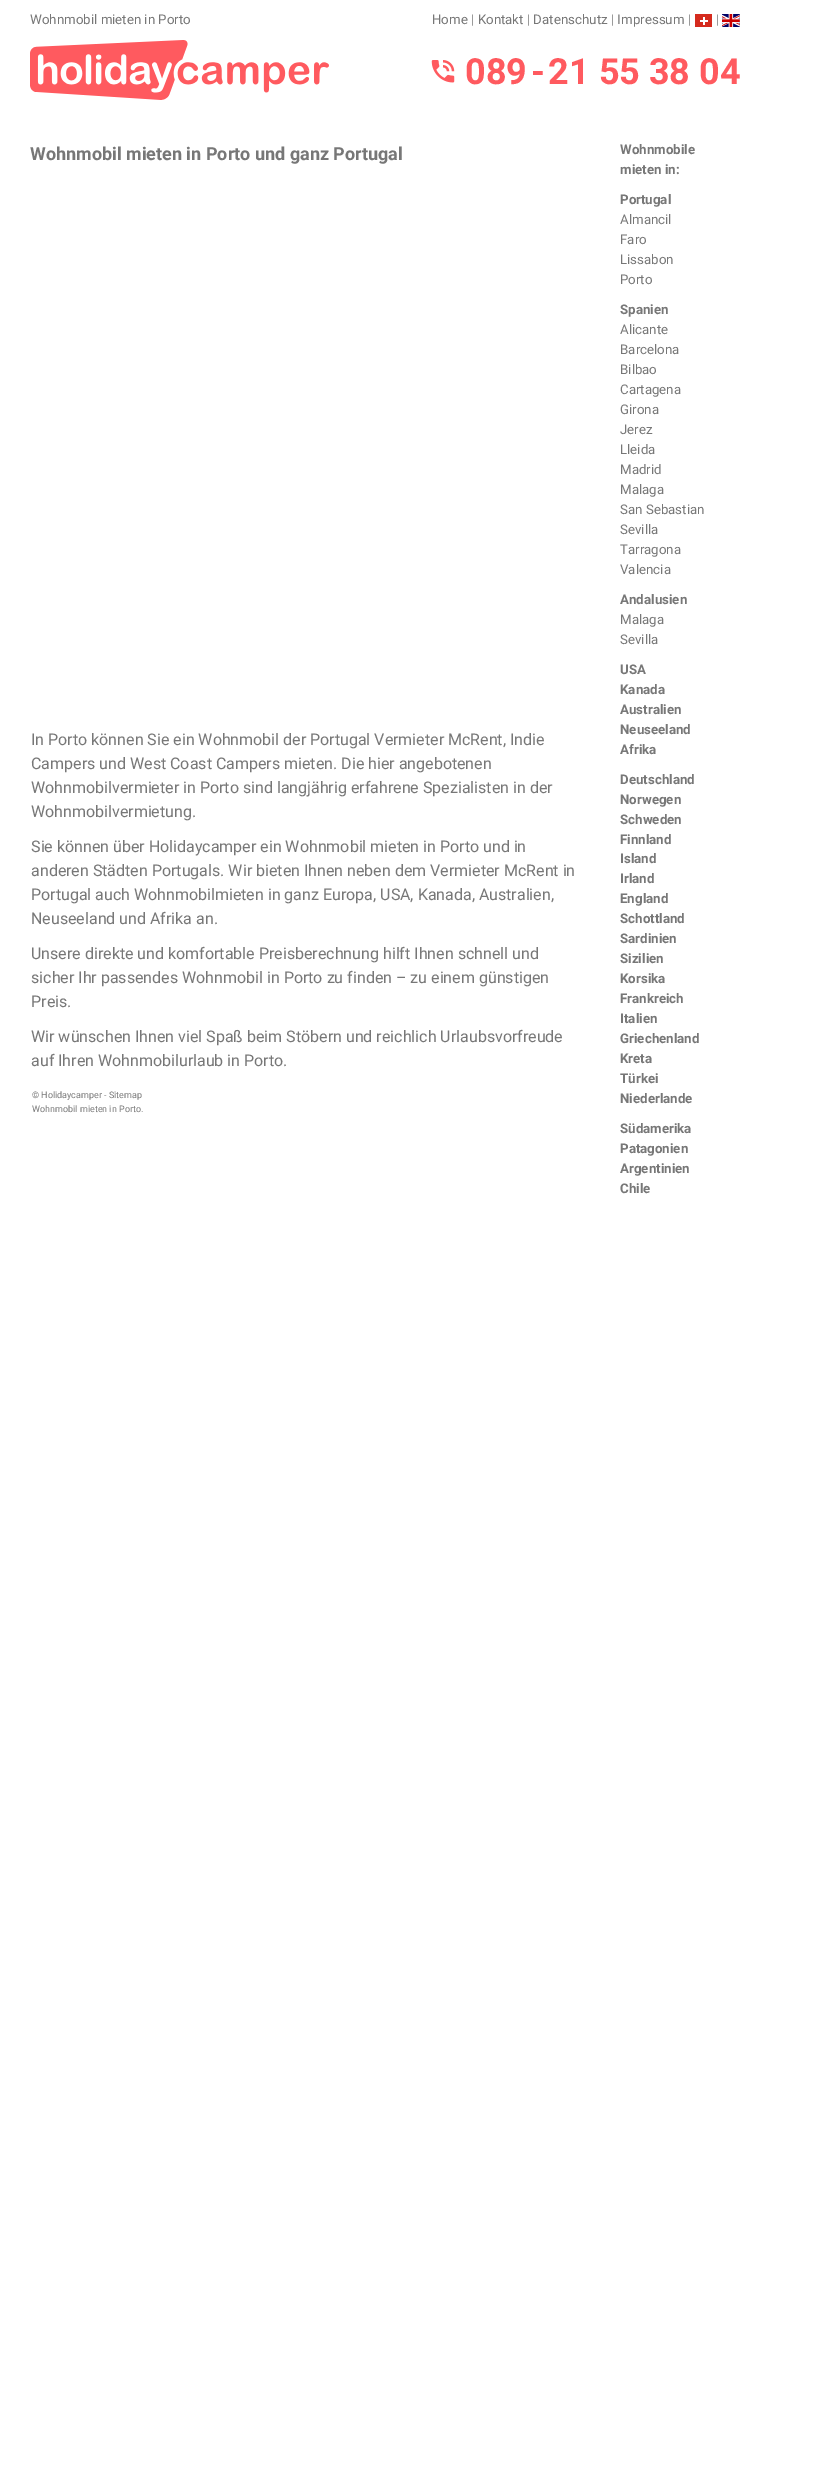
%!PS
<< /PageSize [839 2477] >> setpagedevice
/rgb { 3 { 255 div 3 1 roll } repeat setrgbcolor } def
/font { [ exch dup neg 0 0 3 -1 roll 0 0 ] selectfont } def
/picture { 5 dict begin { /h /w /y /x /name } { exch def } forall
  gsave x y translate w h scale
  w h 8 [w 0 0 h 0 0] name (r) file false 3 colorimage grestore end } def
0 2477 translate 1 -1 scale
4 setmiterlimit
255 255 255 rgb
0 0 839 2477 rectfill
[
  [695 14 17 13 213 43 30]
  [700 20 8 2 255 255 255]
  [703 17 2 8 255 255 255]
] { aload pop rgb rectfill } forall
(img/1.rgb) 722 14 18 13 picture
(img/2.rgb) 30 40 299 60 picture
(img/3.rgb) 431 60 24 23 picture
/Roboto-Regular 13.3 font
119 119 119 rgb
[
  [(Wohnmobil mieten in Porto) 30 24]
  [(Home | Kontakt | Datenschutz | Impressum |) 432 24]
  [(|) 716 24]
] { aload pop moveto show } forall
/Roboto-Bold 36 font
255 90 95 rgb
465 84 moveto (089 - 21 55 38 04) show
/Roboto-Bold 18 font
119 119 119 rgb
30 160 moveto (Wohnmobil mieten in Porto und ganz Portugal) show
/Roboto-Regular 16 font
[
  [(In Porto können Sie ein Wohnmobil der Portugal Vermieter McRent, Indie) 31 745]
  [(Campers und West Coast Campers mieten. Die hier angebotenen) 31 769]
  [(Wohnmobilvermieter in Porto sind langjährig erfahrene Spezialisten in der) 31 793]
  [(Wohnmobilvermietung.) 31 817]
  [(Sie können über Holidaycamper ein Wohnmobil mieten in Porto und in) 31 852]
  [(anderen Städten Portugals. Wir bieten Ihnen neben dem Vermieter McRent in) 31 876]
  [(Portugal auch Wohnmobilmieten in ganz Europa, USA, Kanada, Australien,) 31 900]
  [(Neuseeland und Afrika an.) 31 924]
  [(Unsere direkte und komfortable Preisberechnung hilft Ihnen schnell und) 31 959]
  [(sicher Ihr passendes Wohnmobil in Porto zu finden – zu einem günstigen) 31 983]
  [(Preis.) 31 1007]
  [(Wir wünschen Ihnen viel Spaß beim Stöbern und reichlich Urlaubsvorfreude) 31 1042]
  [(auf Ihren Wohnmobilurlaub in Porto.) 31 1066]
] { aload pop moveto show } forall
/Roboto-Regular 9 font
32 1098 moveto (© Holidaycamper - Sitemap) show
32 1112 moveto (Wohnmobil mieten in Porto.) show
/Roboto-Bold 13.3 font
[
  [(Wohnmobile) 620 154]
  [(mieten in:) 620 174]
  [(Portugal) 620 204]
] { aload pop moveto show } forall
/Roboto-Regular 13.3 font
[
  [(Almancil) 620 224]
  [(Faro) 620 244]
  [(Lissabon) 620 264]
  [(Porto) 620 284]
] { aload pop moveto show } forall
/Roboto-Bold 13.3 font
620 314 moveto (Spanien) show
/Roboto-Regular 13.3 font
[
  [(Alicante) 620 334]
  [(Barcelona) 620 354]
  [(Bilbao) 620 374]
  [(Cartagena) 620 394]
  [(Girona) 620 414]
  [(Jerez) 620 434]
  [(Lleida) 620 454]
  [(Madrid) 620 474]
  [(Malaga) 620 494]
  [(San Sebastian) 620 514]
  [(Sevilla) 620 534]
  [(Tarragona) 620 554]
  [(Valencia) 620 574]
] { aload pop moveto show } forall
/Roboto-Bold 13.3 font
620 604 moveto (Andalusien) show
/Roboto-Regular 13.3 font
620 624 moveto (Malaga) show
620 644 moveto (Sevilla) show
/Roboto-Bold 13.3 font
[
  [(USA) 620 674]
  [(Kanada) 620 694]
  [(Australien) 620 714]
  [(Neuseeland) 620 734]
  [(Afrika) 620 754]
  [(Deutschland) 620 784]
  [(Norwegen) 620 804]
  [(Schweden) 620 824]
  [(Finnland) 620 844]
  [(Island) 620 863]
  [(Irland) 620 883]
  [(England) 620 903]
  [(Schottland) 620 923]
  [(Sardinien) 620 943]
  [(Sizilien) 620 963]
  [(Korsika) 620 983]
  [(Frankreich) 620 1003]
  [(Italien) 620 1023]
  [(Griechenland) 620 1043]
  [(Kreta) 620 1063]
  [(Türkei) 620 1083]
  [(Niederlande) 620 1103]
  [(Südamerika) 620 1133]
  [(Patagonien) 620 1153]
  [(Argentinien) 620 1173]
  [(Chile) 620 1193]
] { aload pop moveto show } forall
showpage
